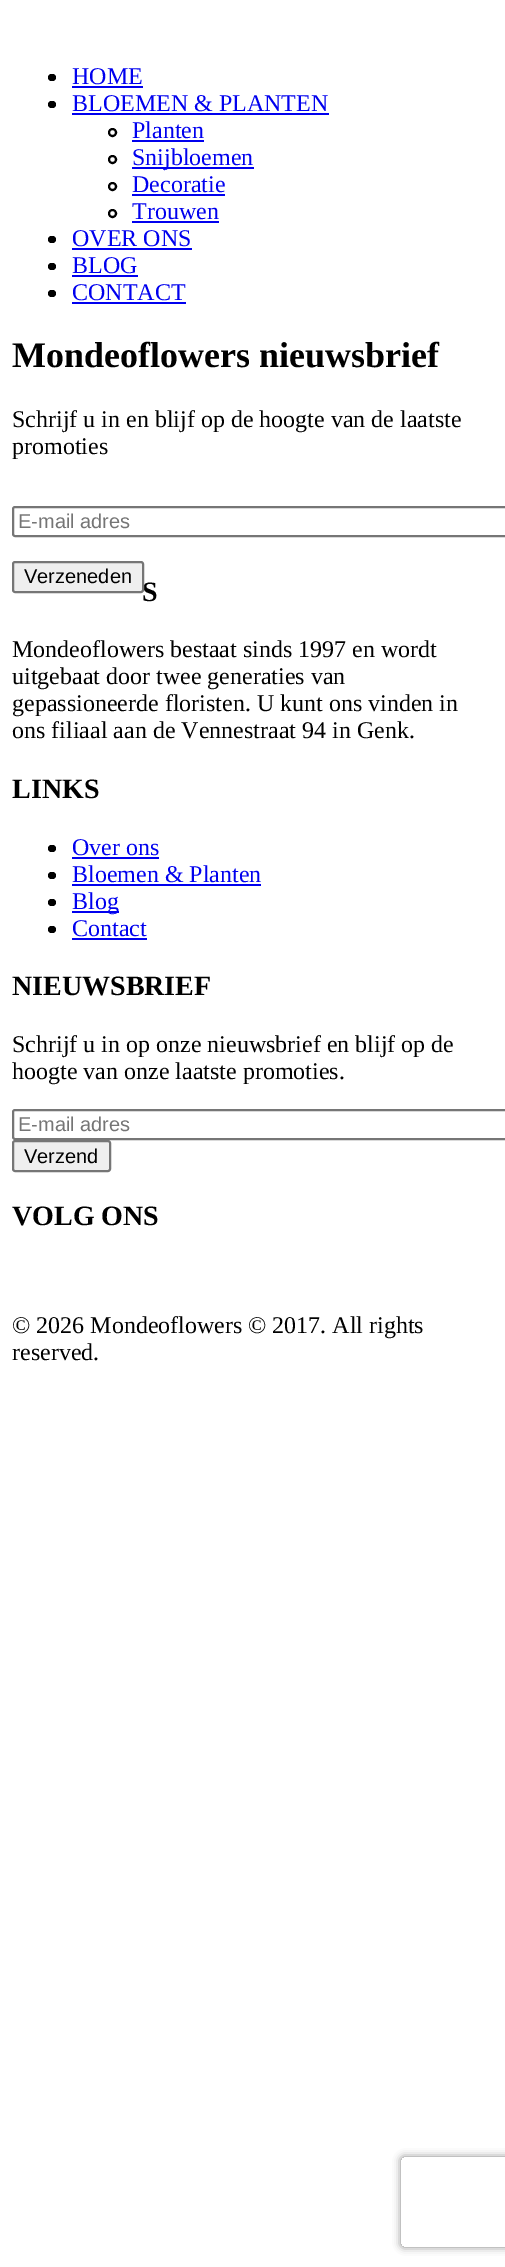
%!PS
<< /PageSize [505 2267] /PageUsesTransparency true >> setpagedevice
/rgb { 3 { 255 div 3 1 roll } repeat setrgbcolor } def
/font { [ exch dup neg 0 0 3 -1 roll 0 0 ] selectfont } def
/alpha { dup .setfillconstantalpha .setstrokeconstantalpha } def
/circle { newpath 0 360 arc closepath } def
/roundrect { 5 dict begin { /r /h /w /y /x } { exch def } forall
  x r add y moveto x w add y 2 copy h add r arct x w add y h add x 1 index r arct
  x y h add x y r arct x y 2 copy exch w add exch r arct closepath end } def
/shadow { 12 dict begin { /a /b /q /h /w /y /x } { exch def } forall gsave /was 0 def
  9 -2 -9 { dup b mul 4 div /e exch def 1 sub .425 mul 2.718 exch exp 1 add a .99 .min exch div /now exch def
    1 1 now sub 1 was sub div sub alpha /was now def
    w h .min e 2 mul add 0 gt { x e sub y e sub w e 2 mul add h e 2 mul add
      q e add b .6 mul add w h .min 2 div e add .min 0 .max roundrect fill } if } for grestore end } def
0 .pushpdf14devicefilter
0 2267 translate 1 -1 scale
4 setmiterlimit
255 255 255 rgb
0 0 505 2267 rectfill
0 0 0 rgb
48 74 8 7 3.5 roundrect fill
0 0 238 rgb
72 86 71 2 rectfill
0 0 0 rgb
48 101 8 7 3.5 roundrect fill
0 0 238 rgb
72 113 257 2 rectfill
0 0 0 rgb
2 setlinewidth
112.5 132.5 3.5 circle stroke
0 0 238 rgb
132 140 72 2 rectfill
0 0 0 rgb
112.5 159.5 3.5 circle stroke
0 0 238 rgb
132 167 122 2 rectfill
0 0 0 rgb
112.5 186.5 3.5 circle stroke
0 0 238 rgb
132 194 93 2 rectfill
0 0 0 rgb
112.5 213.5 3.5 circle stroke
0 0 238 rgb
132 221 87 2 rectfill
0 0 0 rgb
48 236 8 7 3.5 roundrect fill
0 0 238 rgb
72 248 120 2 rectfill
0 0 0 rgb
48 263 8 7 3.5 roundrect fill
0 0 238 rgb
72 275 66 2 rectfill
0 0 0 rgb
48 290 8 7 3.5 roundrect fill
0 0 238 rgb
72 302 114 2 rectfill
118 118 118 rgb
13 507 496 29 2 roundrect stroke
0 0 0 rgb
48 845 8 7 3.5 roundrect fill
0 0 238 rgb
72 857 87 2 rectfill
0 0 0 rgb
48 872 8 7 3.5 roundrect fill
0 0 238 rgb
72 884 189 2 rectfill
0 0 0 rgb
48 899 8 7 3.5 roundrect fill
0 0 238 rgb
72 911 47 2 rectfill
0 0 0 rgb
48 926 8 7 3.5 roundrect fill
0 0 238 rgb
72 938 75 2 rectfill
118 118 118 rgb
13 1110 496 29 2 roundrect stroke
239 239 239 rgb
13 1141 97 30 2 roundrect gsave fill grestore
118 118 118 rgb
stroke
gsave
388 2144 moveto 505 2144 lineto 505 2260 lineto 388 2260 lineto closepath 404 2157 moveto 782 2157 lineto 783.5 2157 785 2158.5 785 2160 curveto 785 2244 lineto 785 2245.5 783.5 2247 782 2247 curveto 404 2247 lineto 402.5 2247 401 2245.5 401 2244 curveto 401 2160 lineto 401 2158.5 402.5 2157 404 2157 curveto closepath eoclip newpath
128 128 128 rgb
401 2157 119 90 3 4 1 shadow
grestore
/LiberationSerif-Regular 24 font
0 0 238 rgb
[
  [(HOME) 72 84]
  [(BLOEMEN & PLANTEN) 72 111]
  [(Planten) 132 138]
  [(Snijbloemen) 132 165]
  [(Decoratie) 132 192]
  [(Trouwen) 132 219]
  [(OVER ONS) 72 246]
  [(BLOG) 72 273]
  [(CONTACT) 72 300]
] { aload pop moveto show } forall
/LiberationSerif-Bold 36 font
0 0 0 rgb
12 367 moveto (Mondeoflowers nieuwsbrief) show
/LiberationSerif-Regular 24 font
12 427 moveto (Schrijf u in en blijf op de hoogte van de laatste) show
12 454 moveto (promoties) show
/LiberationSans-Regular 20 font
117 117 117 rgb
18 528 moveto (E-mail adres) show
/LiberationSerif-Bold 28 font
0 0 0 rgb
142 601 moveto (S) show
239 239 239 rgb
13 562 130 30 2 roundrect gsave fill grestore
118 118 118 rgb
stroke
/LiberationSans-Regular 20 font
0 0 0 rgb
24 583 moveto (Verzeneden) show
/LiberationSerif-Regular 24 font
[
  [(Mondeoflowers bestaat sinds 1997 en wordt) 12 657]
  [(uitgebaat door twee generaties van) 12 684]
  [(gepassioneerde floristen. U kunt ons vinden in) 12 711]
  [(ons filiaal aan de Vennestraat 94 in Genk.) 12 738]
] { aload pop moveto show } forall
/LiberationSerif-Bold 28 font
12 798 moveto (LINKS) show
/LiberationSerif-Regular 24 font
0 0 238 rgb
[
  [(Over ons) 72 855]
  [(Bloemen & Planten) 72 882]
  [(Blog) 72 909]
  [(Contact) 72 936]
] { aload pop moveto show } forall
/LiberationSerif-Bold 28 font
0 0 0 rgb
12 995 moveto (NIEUWSBRIEF) show
/LiberationSerif-Regular 24 font
12 1052 moveto (Schrijf u in op onze nieuwsbrief en blijf op de) show
12 1079 moveto (hoogte van onze laatste promoties.) show
/LiberationSans-Regular 20 font
117 117 117 rgb
18 1131 moveto (E-mail adres) show
0 0 0 rgb
24 1163 moveto (Verzend) show
/LiberationSerif-Bold 28 font
12 1225 moveto (VOLG ONS) show
/LiberationSerif-Regular 24 font
12 1333 moveto (© 2026 Mondeoflowers © 2017. All rights) show
12 1360 moveto (reserved.) show
.poppdf14devicefilter showpage
